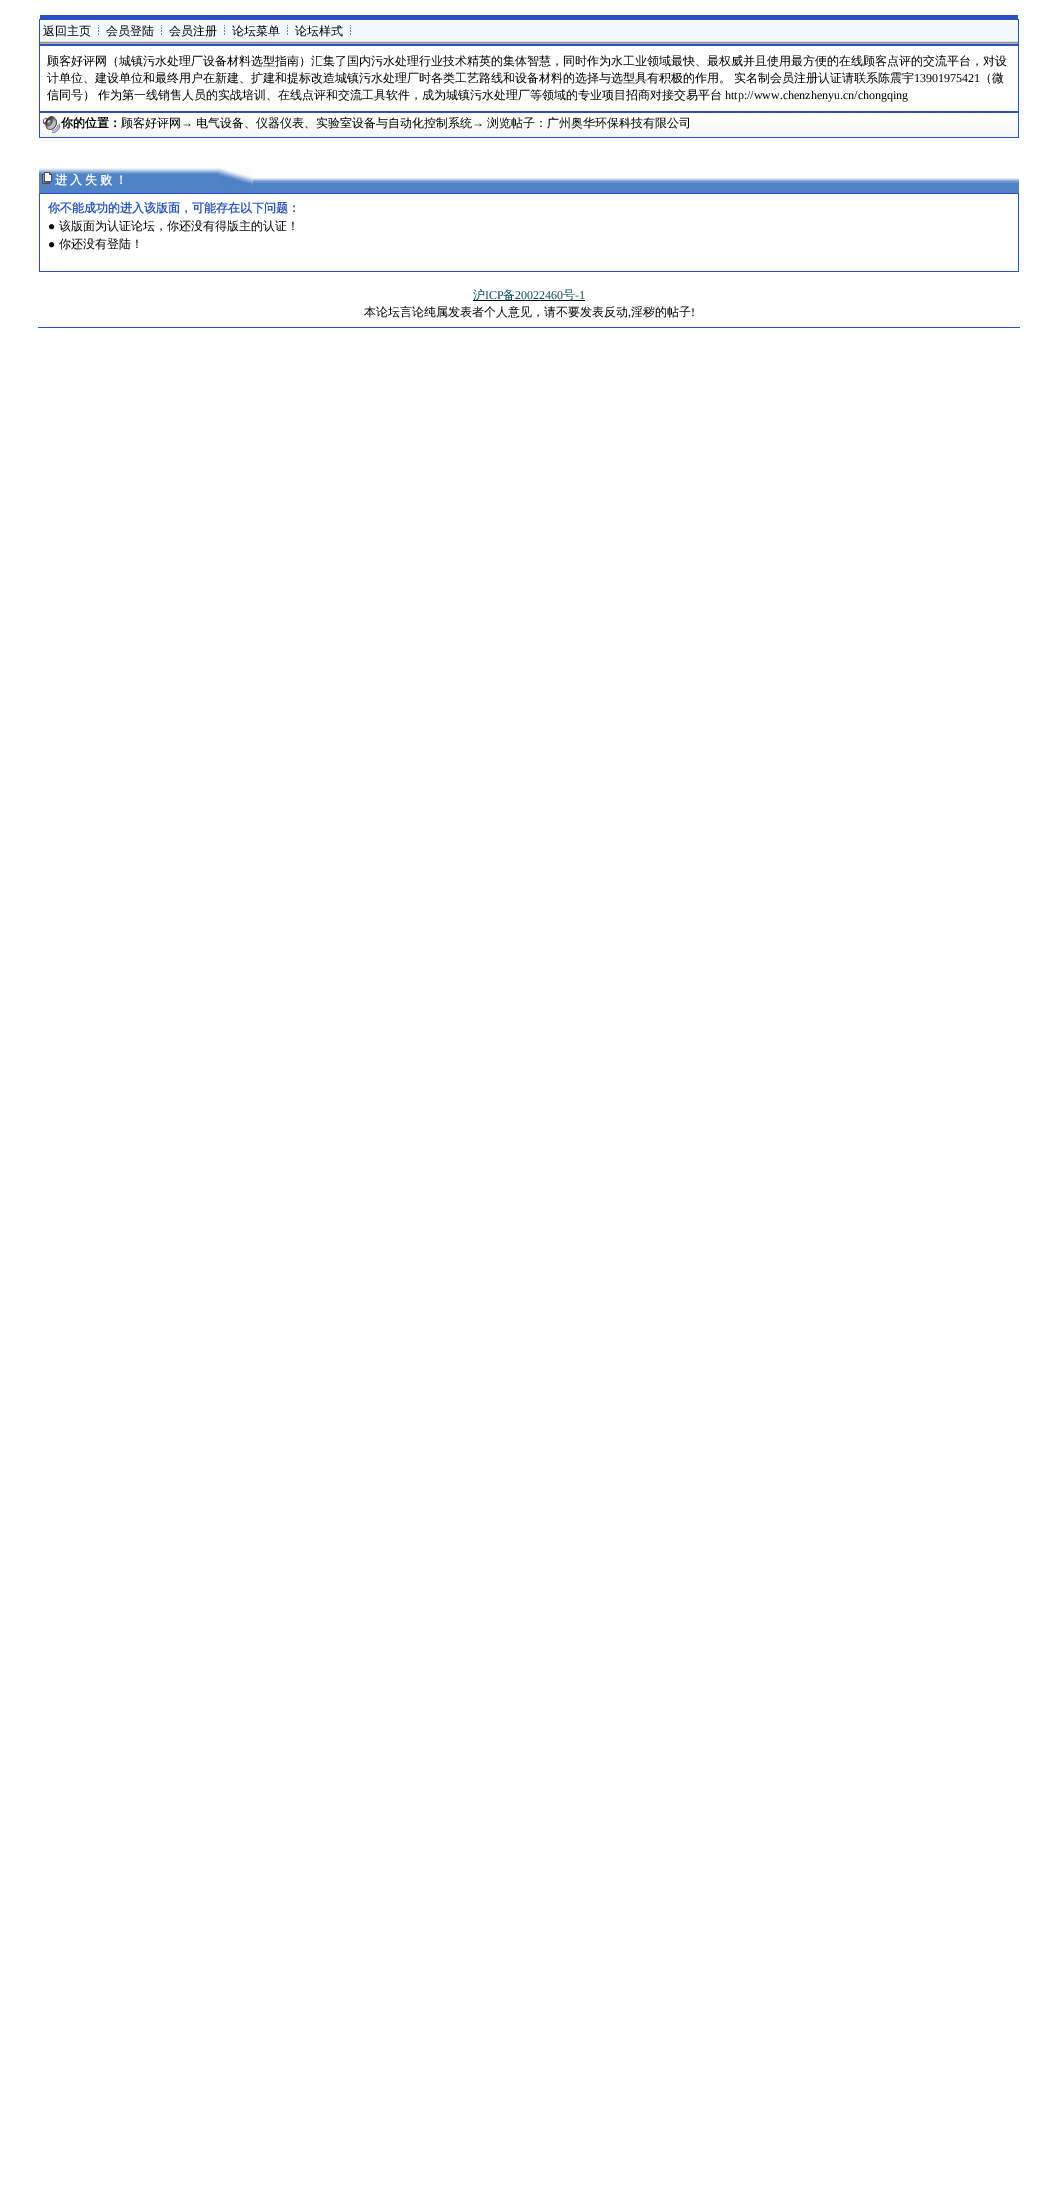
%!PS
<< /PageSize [1058 2206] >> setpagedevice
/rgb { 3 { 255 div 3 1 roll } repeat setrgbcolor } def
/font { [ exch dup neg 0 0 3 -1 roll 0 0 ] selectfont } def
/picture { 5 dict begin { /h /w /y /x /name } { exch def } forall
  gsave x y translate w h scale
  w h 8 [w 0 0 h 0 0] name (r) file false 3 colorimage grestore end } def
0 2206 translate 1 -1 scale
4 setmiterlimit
255 255 255 rgb
0 0 1058 2206 rectfill
41 83 192 rgb
40 15 978 4 rectfill
(img/1.rgb) 40 20 978 24 picture
[
  [39 19 980 1 41 83 192]
  [1018 19 1 26 41 83 192]
  [39 44 980 2 41 83 192]
  [39 19 1 26 41 83 192]
] { aload pop rgb rectfill } forall
(img/2.rgb) 98 25 1 10 picture
(img/2.rgb) 161 25 1 10 picture
(img/2.rgb) 224 25 1 10 picture
(img/2.rgb) 287 25 1 10 picture
(img/2.rgb) 350 25 1 10 picture
[
  [1018 45 1 67 41 83 192]
  [39 111 980 1 41 83 192]
  [39 45 1 67 41 83 192]
] { aload pop rgb rectfill } forall
(img/3.rgb) 39 112 980 26 picture
(img/4.rgb) 43 116 17 17 picture
(img/5.rgb) 39 168 180 25 picture
(img/6.rgb) 42 172 10 12 picture
(img/7.rgb) 219 178 800 15 picture
(img/8.rgb) 219 168 34 17 picture
[
  [39 193 980 1 41 83 192]
  [1018 193 1 79 41 83 192]
  [39 271 980 1 41 83 192]
  [39 193 1 79 41 83 192]
  [473 300 112 1 0 0 0]
  [38 327 982 1 41 83 192]
] { aload pop rgb rectfill } forall
/WenQuanYiZenHei-Medium 12 font
0 0 0 rgb
[
  [(返回主页) 43 35]
  [(会员登陆) 106 35]
  [(会员注册) 169 35]
  [(论坛菜单) 232 35]
  [(论坛样式) 295 35]
  [(顾客好评网（城镇污水处理厂设备材料选型指南）汇集了国内污水处理行业技术精英的集体智慧，同时作为水工业领域最快、最权威并且使用最方便的在线顾客点评的交流平台，对设) 47 65]
  [(计单位、建设单位和最终用户在新建、扩建和提标改造城镇污水处理厂时各类工艺路线和设备材料的选择与选型具有积极的作用。) 47 82]
  [(实名制会员注册认证请联系陈震宇) 734 82]
] { aload pop moveto show } forall
/LiberationSerif-Regular 12 font
914 82 moveto (13901975421) show
/WenQuanYiZenHei-Medium 12 font
[
  [(（微) 980 82]
  [(信同号）) 47 99]
  [(作为第一线销售人员的实战培训、在线点评和交流工具软件，成为城镇污水处理厂等领域的专业项目招商对接交易平台) 98 99]
] { aload pop moveto show } forall
/LiberationSerif-Regular 12 font
725 99 moveto (http://www.chenzhenyu.cn/chongqing) show
/WenQuanYiZenHei-Bold 12 font
61 127 moveto (你的位置：) show
/WenQuanYiZenHei-Medium 12 font
121 127 moveto (顾客好评网) show
/LiberationSerif-Regular 12 font
181 127 moveto (→) show
/WenQuanYiZenHei-Medium 12 font
196 127 moveto (电气设备、仪器仪表、实验室设备与自动化控制系统) show
/LiberationSerif-Regular 12 font
472 127 moveto (→) show
/WenQuanYiZenHei-Medium 12 font
487 127 moveto (浏览帖子：广州奥华环保科技有限公司) show
/WenQuanYiZenHei-Bold 12 font
255 255 255 rgb
55 184 moveto -0.5 0 32 (进 入 失 败 ！) widthshow
41 83 192 rgb
48 212 moveto (你不能成功的进入该版面，可能存在以下问题：) show
/LiberationSerif-Regular 12 font
0 0 0 rgb
48 230 moveto (●) show
/WenQuanYiZenHei-Medium 12 font
59 230 moveto (该版面为认证论坛，你还没有得版主的认证！) show
/LiberationSerif-Regular 12 font
48 248 moveto (●) show
/WenQuanYiZenHei-Medium 12 font
59 248 moveto (你还没有登陆！) show
12 78 99 rgb
473 299 moveto (沪) show
/LiberationSerif-Regular 12 font
485 299 moveto (ICP) show
/WenQuanYiZenHei-Medium 12 font
503 299 moveto (备) show
/LiberationSerif-Regular 12 font
515 299 moveto (20022460) show
/WenQuanYiZenHei-Medium 12 font
563 299 moveto (号) show
/LiberationSerif-Regular 12 font
575 299 moveto (-1) show
/WenQuanYiZenHei-Medium 12 font
0 0 0 rgb
364 316 moveto (本论坛言论纯属发表者个人意见，请不要发表反动) show
/LiberationSerif-Regular 12 font
628 316 moveto (,) show
/WenQuanYiZenHei-Medium 12 font
631 316 moveto (淫秽的帖子) show
/LiberationSerif-Regular 12 font
691 316 moveto (!) show
showpage
